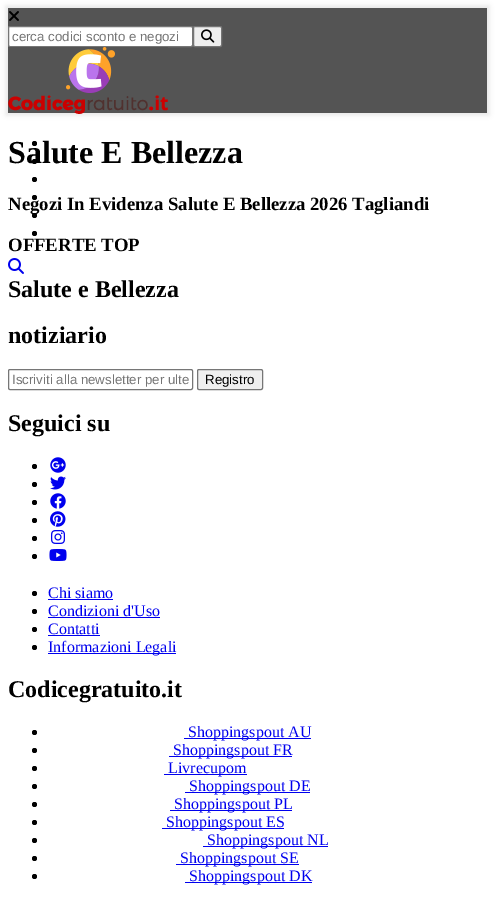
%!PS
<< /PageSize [495 907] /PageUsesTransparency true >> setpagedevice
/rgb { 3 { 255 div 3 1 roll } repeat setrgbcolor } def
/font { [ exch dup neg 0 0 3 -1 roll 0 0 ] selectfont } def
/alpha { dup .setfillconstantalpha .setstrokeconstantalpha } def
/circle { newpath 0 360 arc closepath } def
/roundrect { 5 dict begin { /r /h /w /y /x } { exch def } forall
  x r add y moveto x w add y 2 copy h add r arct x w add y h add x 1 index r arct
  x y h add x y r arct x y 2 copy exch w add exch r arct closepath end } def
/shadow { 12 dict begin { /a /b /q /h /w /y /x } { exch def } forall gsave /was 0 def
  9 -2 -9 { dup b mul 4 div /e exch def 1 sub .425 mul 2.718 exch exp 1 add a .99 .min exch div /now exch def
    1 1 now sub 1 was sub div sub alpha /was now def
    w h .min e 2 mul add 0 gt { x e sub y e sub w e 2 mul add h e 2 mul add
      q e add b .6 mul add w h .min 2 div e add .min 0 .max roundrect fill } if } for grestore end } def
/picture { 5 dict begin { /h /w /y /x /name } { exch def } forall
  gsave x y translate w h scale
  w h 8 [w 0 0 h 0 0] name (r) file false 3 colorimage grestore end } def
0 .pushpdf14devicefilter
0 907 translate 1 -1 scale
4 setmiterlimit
255 255 255 rgb
0 0 495 907 rectfill
0 0 0 rgb
6 6 483 109 0 2.5 0.1 shadow
84 84 84 rgb
8 8 479 105 rectfill
(img/1.rgb) 9 11 10 10 picture
255 255 255 rgb
8.5 26.5 184 20 1.5 roundrect gsave fill grestore
118 118 118 rgb
stroke
239 239 239 rgb
193.5 26.5 28 20 1.5 roundrect gsave fill grestore
118 118 118 rgb
stroke
(img/2.rgb) 201 29 14 14 picture
(img/3.rgb) 8 47 160 67 picture
0 0 0 rgb
34.5 143.5 2.5 circle fill
34.5 161.5 2.5 circle fill
34.5 179.5 2.5 circle fill
34.5 197.5 2.5 circle fill
34.5 215.5 2.5 circle fill
34.5 233.5 2.5 circle fill
(img/4.rgb) 8 258 16 16 picture
118 118 118 rgb
8.5 369.5 184 20 1.5 roundrect stroke
239 239 239 rgb
197.5 369.5 65 20 1.5 roundrect gsave fill grestore
118 118 118 rgb
stroke
0 0 0 rgb
34.5 466.5 2.5 circle fill
(img/5.rgb) 50 457 16 16 picture
34.5 484.5 2.5 circle fill
(img/6.rgb) 50 476 16 14 picture
34.5 502.5 2.5 circle fill
(img/7.rgb) 50 493 16 16 picture
34.5 520.5 2.5 circle fill
(img/8.rgb) 50 511 16 16 picture
34.5 538.5 2.5 circle fill
(img/9.rgb) 51 530 14 14 picture
34.5 556.5 2.5 circle fill
(img/10.rgb) 49 549 18 12 picture
34.5 593.5 2.5 circle fill
0 0 238 rgb
48 599 65 1 rectfill
0 0 0 rgb
34.5 611.5 2.5 circle fill
0 0 238 rgb
48 617 112 1 rectfill
0 0 0 rgb
34.5 629.5 2.5 circle fill
0 0 238 rgb
48 635 52 1 rectfill
0 0 0 rgb
34.5 647.5 2.5 circle fill
0 0 238 rgb
48 653 128 1 rectfill
0 0 0 rgb
34.5 732.5 2.5 circle fill
0 0 238 rgb
184 738 127 1 rectfill
0 0 0 rgb
34.5 750.5 2.5 circle fill
0 0 238 rgb
169 756 123 1 rectfill
0 0 0 rgb
34.5 768.5 2.5 circle fill
0 0 238 rgb
164 774 83 1 rectfill
0 0 0 rgb
34.5 786.5 2.5 circle fill
0 0 238 rgb
185 792 125 1 rectfill
0 0 0 rgb
34.5 804.5 2.5 circle fill
0 0 238 rgb
170 810 122 1 rectfill
0 0 0 rgb
34.5 822.5 2.5 circle fill
0 0 238 rgb
162 828 122 1 rectfill
0 0 0 rgb
34.5 840.5 2.5 circle fill
0 0 238 rgb
203 846 125 1 rectfill
0 0 0 rgb
34.5 858.5 2.5 circle fill
0 0 238 rgb
176 864 123 1 rectfill
0 0 0 rgb
34.5 876.5 2.5 circle fill
0 0 238 rgb
185 882 127 1 rectfill
/LiberationSans-Regular 13.3 font
117 117 117 rgb
12 41 moveto (cerca codici sconto e negozi) show
/LiberationSerif-Bold 32 font
0 0 0 rgb
8 163 moveto (Salute E Bellezza) show
/LiberationSerif-Bold 18.75 font
8 210 moveto (Negozi In Evidenza Salute E Bellezza 2026 Tagliandi) show
8 251 moveto (OFFERTE TOP) show
/LiberationSerif-Bold 24 font
8 297 moveto (Salute e Bellezza) show
8 343 moveto (notiziario) show
/LiberationSans-Regular 13.3 font
117 117 117 rgb
12 384 moveto (Iscriviti alla newsletter per ulte) show
0 0 0 rgb
205 384 moveto (Registro) show
/LiberationSerif-Bold 24 font
8 431 moveto (Seguici su) show
/LiberationSerif-Regular 16 font
0 0 238 rgb
[
  [(Chi siamo) 48 598]
  [(Condizioni d'Uso) 48 616]
  [(Contatti) 48 634]
  [(Informazioni Legali) 48 652]
] { aload pop moveto show } forall
/LiberationSerif-Bold 24 font
0 0 0 rgb
8 697 moveto (Codicegratuito.it) show
/LiberationSerif-Regular 16 font
0 0 238 rgb
[
  [(Shoppingspout AU) 188 737]
  [(Shoppingspout FR) 173 755]
  [(Livrecupom) 168 773]
  [(Shoppingspout DE) 189 791]
  [(Shoppingspout PL) 174 809]
  [(Shoppingspout ES) 166 827]
  [(Shoppingspout NL) 207 845]
  [(Shoppingspout SE) 180 863]
  [(Shoppingspout DK) 189 881]
] { aload pop moveto show } forall
.poppdf14devicefilter showpage
